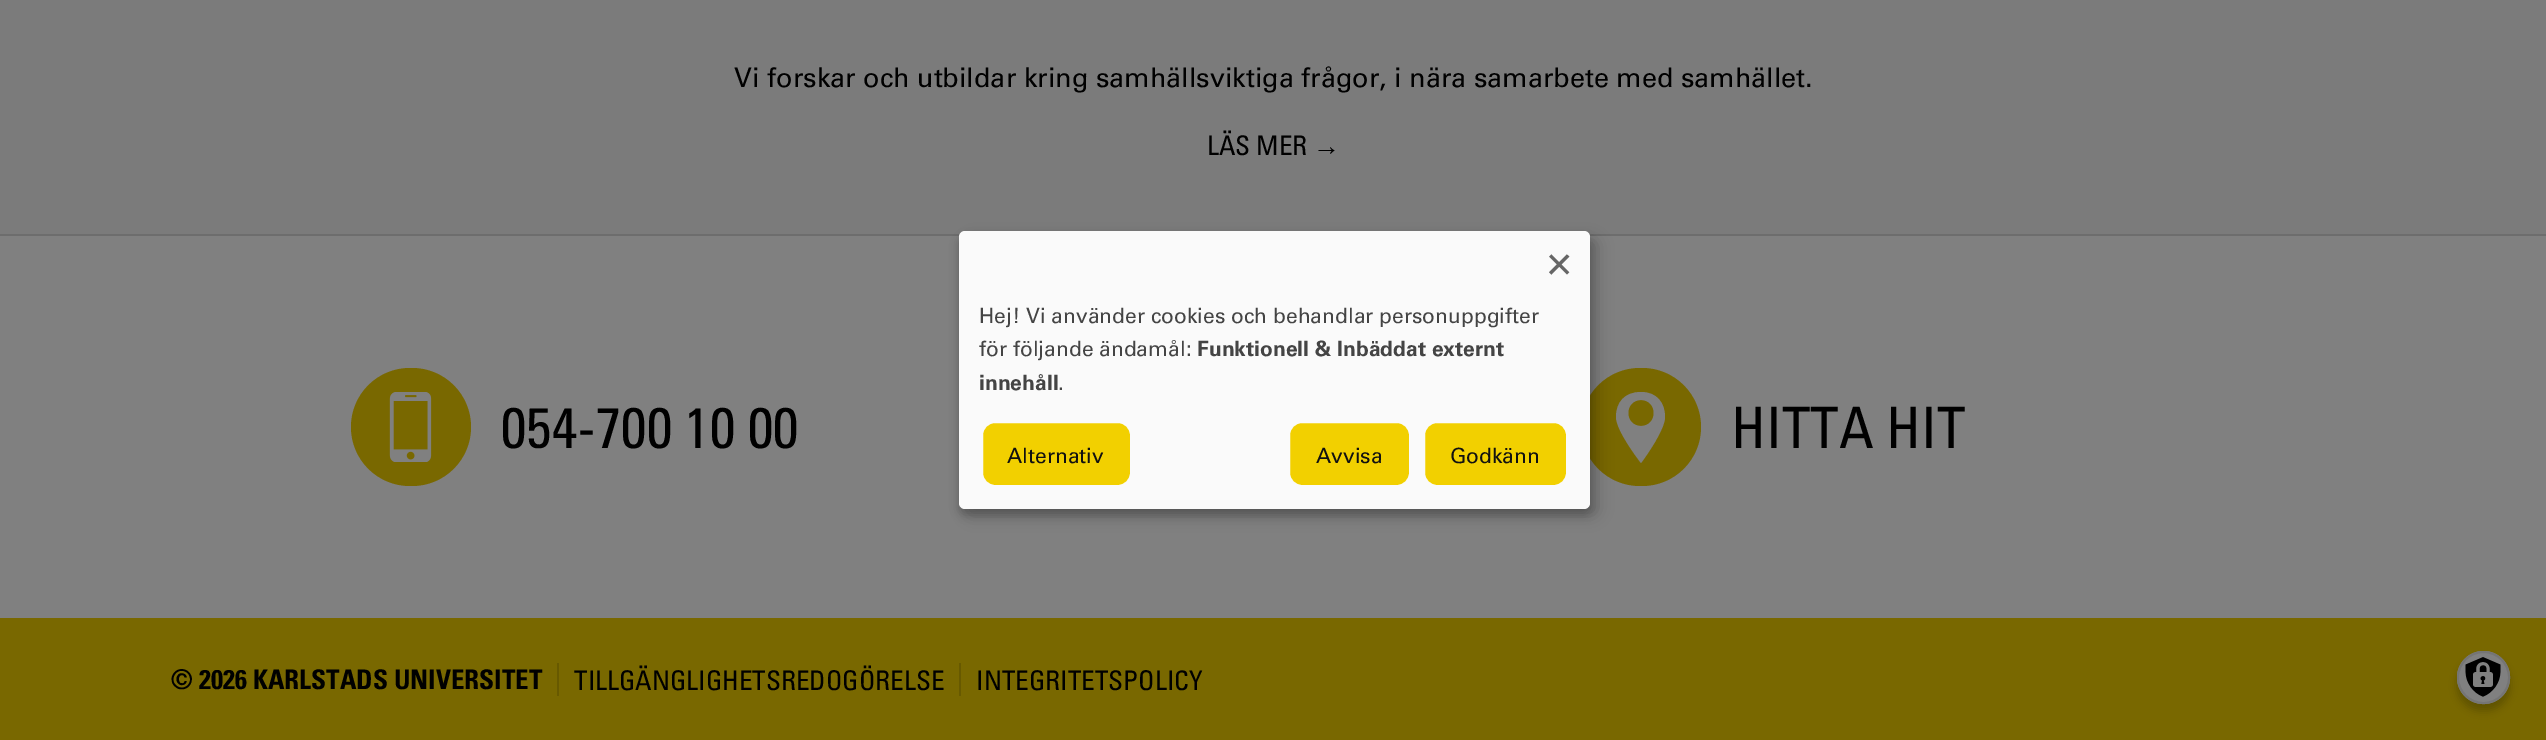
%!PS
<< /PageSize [2546 740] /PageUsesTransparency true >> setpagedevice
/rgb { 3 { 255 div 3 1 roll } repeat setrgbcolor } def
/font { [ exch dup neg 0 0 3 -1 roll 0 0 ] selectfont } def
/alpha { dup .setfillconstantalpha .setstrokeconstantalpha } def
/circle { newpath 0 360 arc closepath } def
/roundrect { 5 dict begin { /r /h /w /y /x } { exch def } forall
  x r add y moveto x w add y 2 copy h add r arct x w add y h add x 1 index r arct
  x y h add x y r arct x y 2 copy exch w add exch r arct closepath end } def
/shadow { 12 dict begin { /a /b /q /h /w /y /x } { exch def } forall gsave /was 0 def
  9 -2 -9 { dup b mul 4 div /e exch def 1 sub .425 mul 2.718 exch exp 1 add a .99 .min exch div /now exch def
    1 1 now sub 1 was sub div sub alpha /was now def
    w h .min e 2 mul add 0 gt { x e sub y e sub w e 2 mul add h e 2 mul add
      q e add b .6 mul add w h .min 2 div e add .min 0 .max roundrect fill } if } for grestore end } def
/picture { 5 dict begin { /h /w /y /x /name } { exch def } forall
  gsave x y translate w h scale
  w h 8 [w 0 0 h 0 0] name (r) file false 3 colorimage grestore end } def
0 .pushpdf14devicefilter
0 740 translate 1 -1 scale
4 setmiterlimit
128 128 128 rgb
0 0 2546 740 rectfill
123 123 123 rgb
0 0 2546 234 rectfill
109 109 109 rgb
0 234 2546 2 rectfill
121 104 0 rgb
351 368 120 118 59 roundrect fill
(img/1.rgb) 389 392 43 70 picture
1581 368 120 118 59 roundrect fill
128 128 128 rgb
1641 392 moveto 1624 392 1616 403 1616 417 curveto 1616 431 1641 463 1641 463 curveto 1641 463 1665 431 1665 417 curveto 1665 403 1657 392 1641 392 curveto closepath 1641 426 moveto 1624 426 1624 400 1641 400 curveto 1658 400 1658 426 1641 426 curveto closepath fill
[
  [0 618 2546 122 121 104 0]
  [557 663 2 33 103 89 0]
  [959 663 2 33 103 89 0]
] { aload pop rgb rectfill } forall
0 0 0 rgb
966 239 632 277 6 7.5 0.19 shadow
959 237 631 278 6 4.5 0.2 shadow
250 250 250 rgb
959 231 631 278 6 roundrect fill
242 208 0 rgb
981.5 421.5 150 65 13.5 roundrect gsave fill grestore
250 250 250 rgb
3 setlinewidth
stroke
242 208 0 rgb
1288.5 421.5 122 65 13.5 roundrect gsave fill grestore
250 250 250 rgb
stroke
242 208 0 rgb
1423.5 421.5 144 65 13.5 roundrect gsave fill grestore
250 250 250 rgb
stroke
0 0 0 rgb
2457 659 53 52 26 4 0.2 shadow
128 128 128 rgb
2483.5 677.5 26.5 circle fill
(img/2.rgb) 2465 657 36 40 picture
117 117 117 rgb
2 setlinewidth
2483.5 677.5 25.5 circle stroke
/Univers-Regular 27 font
0 0 0 rgb
734 87 moveto (Vi forskar och utbildar kring samhällsviktiga frågor, i nära samarbete med samhället.) show
/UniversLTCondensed-Regular 27 font
1207 155 moveto (LÄS MER) show
/LiberationSans-Regular 27 font
1313 155 moveto (→) show
/UniversLTCondensed-Regular 57 font
501 448 moveto (054-700 10 00) show
1731 448 moveto (HITTA HIT) show
/UniversLTCondensed-Bold 27 font
171 689 moveto (© 2026 KARLSTADS UNIVERSITET) show
/UniversLTCondensed-Regular 27 font
574 690 moveto (TILLGÄNGLIGHETSREDOGÖRELSE) show
976 690 moveto (INTEGRITETSPOLICY) show
/Univers-Regular 42 font
102 102 102 rgb
1547 275 moveto (×) show
/Univers-Regular 21 font
68 68 68 rgb
979 323 moveto (Hej! Vi använder cookies och behandlar personuppgifter) show
979 356 moveto (för följande ändamål:) show
/Univers-Bold 21 font
1197 356 moveto (Funktionell & Inbäddat externt) show
979 390 moveto (innehåll) show
/Univers-Regular 21 font
1058 390 moveto (.) show
17 17 17 rgb
[
  [(Alternativ) 1007 463]
  [(Avvisa) 1316 463]
  [(Godkänn) 1450 463]
] { aload pop moveto show } forall
.poppdf14devicefilter showpage
